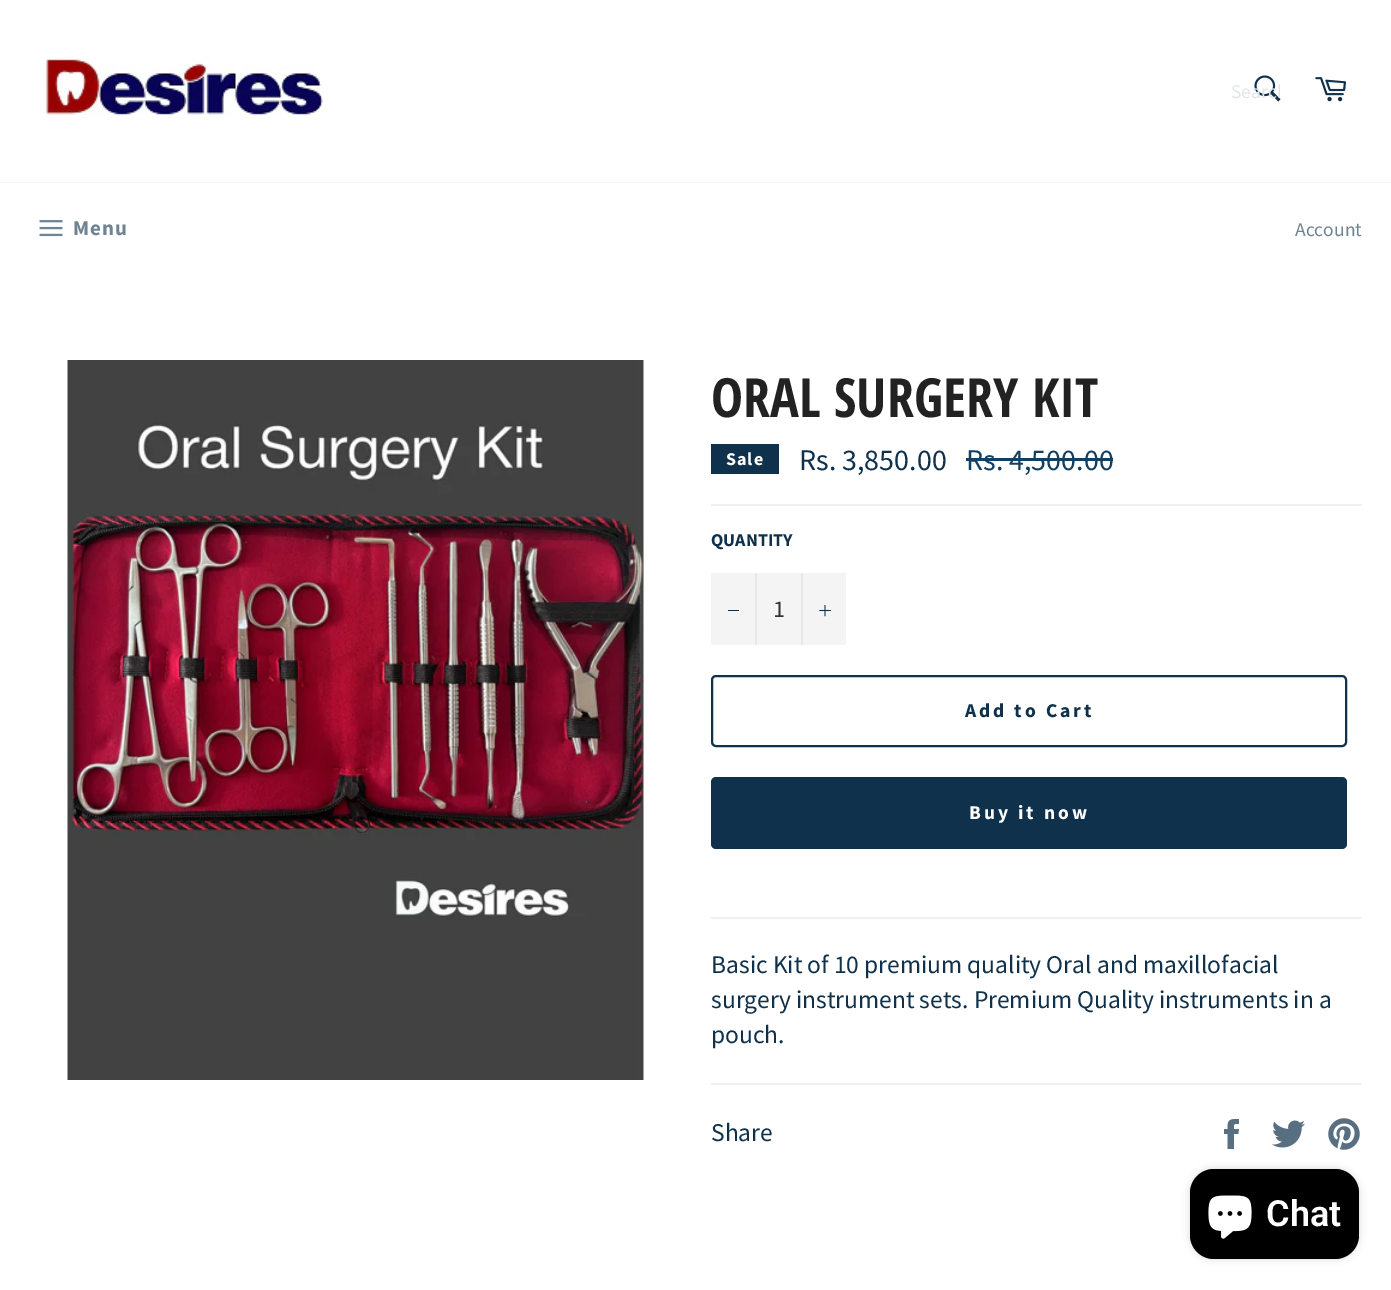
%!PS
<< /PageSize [1391 1290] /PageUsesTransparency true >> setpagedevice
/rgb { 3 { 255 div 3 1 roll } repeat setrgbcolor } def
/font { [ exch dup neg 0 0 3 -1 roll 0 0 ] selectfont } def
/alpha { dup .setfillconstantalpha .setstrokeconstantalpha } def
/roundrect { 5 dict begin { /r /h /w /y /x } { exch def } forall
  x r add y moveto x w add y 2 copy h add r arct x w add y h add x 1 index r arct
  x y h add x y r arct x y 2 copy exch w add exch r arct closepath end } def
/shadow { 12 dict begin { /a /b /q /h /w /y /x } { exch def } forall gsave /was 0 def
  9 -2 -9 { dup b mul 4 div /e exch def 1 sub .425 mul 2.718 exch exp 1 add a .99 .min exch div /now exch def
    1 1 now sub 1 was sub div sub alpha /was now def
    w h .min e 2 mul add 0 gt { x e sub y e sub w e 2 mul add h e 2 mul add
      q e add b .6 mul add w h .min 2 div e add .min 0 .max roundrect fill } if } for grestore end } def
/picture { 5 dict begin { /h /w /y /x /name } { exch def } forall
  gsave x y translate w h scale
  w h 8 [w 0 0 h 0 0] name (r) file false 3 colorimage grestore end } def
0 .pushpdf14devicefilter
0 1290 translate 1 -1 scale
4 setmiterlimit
255 255 255 rgb
0 0 1391 1290 rectfill
(img/1.rgb) 42 57 282 58 picture
(img/2.rgb) 1254 75 27 27 picture
(img/3.rgb) 1315 77 31 25 picture
242 242 242 rgb
0 182 1391 1 rectfill
(img/4.rgb) 39 220 24 17 picture
(img/5.rgb) 67 360 577 720 picture
[
  [711 444 68 30 15 49 75]
  [966 458 147 3 19 63 96]
  [711 504 651 2 240 240 240]
  [711 573 135 72 244 244 244]
  [755 573 2 72 231 231 231]
  [728 610 11 1 15 49 75]
  [801 573 2 72 231 231 231]
] { aload pop rgb rectfill } forall
(img/6.rgb) 819 605 12 12 picture
15 49 75 rgb
2 setlinewidth
712 676 634 70 4 roundrect stroke
711 777 636 72 5 roundrect fill
240 240 240 rgb
711 917 651 2 rectfill
711 1083 651 2 rectfill
(img/7.rgb) 1224 1119 15 30 picture
(img/8.rgb) 1272 1120 33 28 picture
(img/9.rgb) 1328 1118 32 32 picture
0 0 0 rgb
1190 1169 169 90 24 4 0.15 shadow
1190 1169 169 90 24 roundrect fill
(img/10.rgb) 1208 1195 44 44 picture
gsave
1232 78 48 26 rectclip
/SourceSansPro-Regular 19.5 font
225 229 233 rgb
1231 98 moveto (Search) show
grestore
/SourceSansPro-Bold 21 font
111 131 147 rgb
73 235 moveto 1 0 (Menu) ashow
/SourceSansPro-Regular 19.5 font
1295 236 moveto (Account) show
/OpenSansCondensed-Bold 54 font
34 34 34 rgb
711 417 moveto (ORAL SURGERY KIT) show
/SourceSansPro-Bold 18 font
255 255 255 rgb
726 465 moveto 1 0 (Sale) ashow
/SourceSansPro-Regular 30 font
15 49 75 rgb
799 470 moveto (Rs. 3,850.00) show
19 63 96 rgb
966 470 moveto (Rs. 4,500.00) show
/SourceSansPro-Bold 18 font
15 49 75 rgb
711 546 moveto (QUANTITY) show
/SourceSansPro-Regular 24 font
51 51 51 rgb
773 617 moveto (1) show
/SourceSansPro-Bold 19.5 font
15 49 75 rgb
965 717 moveto 3 0 (Add to Cart) ashow
255 255 255 rgb
969 819 moveto 3 0 (Buy it now) ashow
/SourceSansPro-Regular 25.5 font
15 49 75 rgb
[
  [(Basic Kit of 10 premium quality Oral and maxillofacial) 711 973]
  [(surgery instrument sets. Premium Quality instruments in a) 711 1008]
  [(pouch.) 711 1043]
  [(Share) 711 1141]
] { aload pop moveto show } forall
/Roboto-SemiBold 36 font
255 255 255 rgb
1266 1226 moveto (Chat) show
.poppdf14devicefilter showpage
